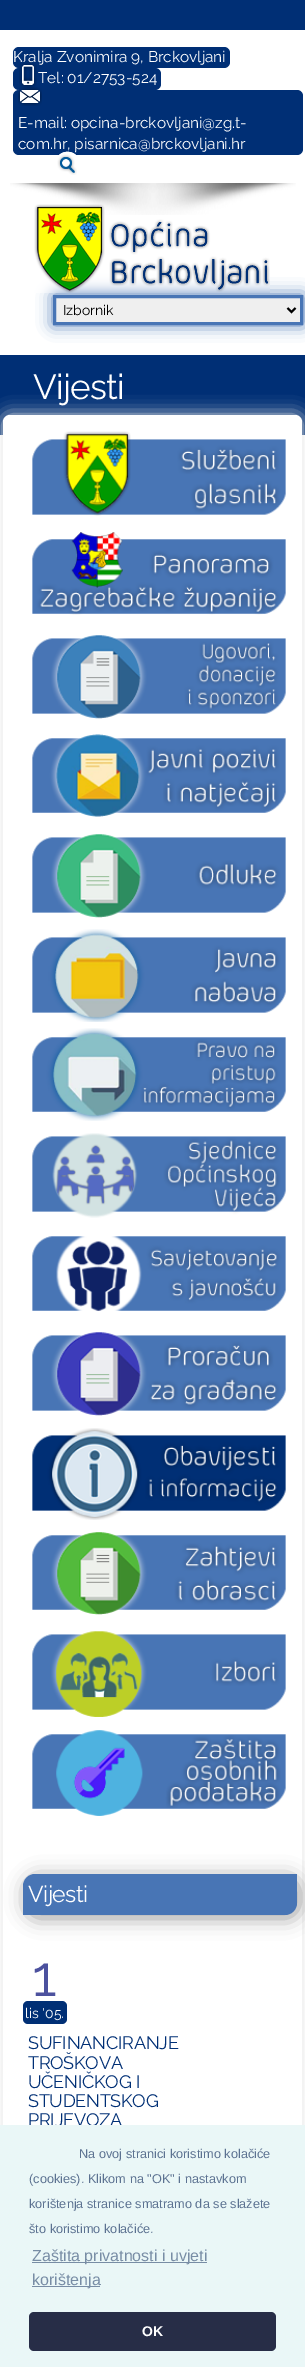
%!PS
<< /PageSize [305 2367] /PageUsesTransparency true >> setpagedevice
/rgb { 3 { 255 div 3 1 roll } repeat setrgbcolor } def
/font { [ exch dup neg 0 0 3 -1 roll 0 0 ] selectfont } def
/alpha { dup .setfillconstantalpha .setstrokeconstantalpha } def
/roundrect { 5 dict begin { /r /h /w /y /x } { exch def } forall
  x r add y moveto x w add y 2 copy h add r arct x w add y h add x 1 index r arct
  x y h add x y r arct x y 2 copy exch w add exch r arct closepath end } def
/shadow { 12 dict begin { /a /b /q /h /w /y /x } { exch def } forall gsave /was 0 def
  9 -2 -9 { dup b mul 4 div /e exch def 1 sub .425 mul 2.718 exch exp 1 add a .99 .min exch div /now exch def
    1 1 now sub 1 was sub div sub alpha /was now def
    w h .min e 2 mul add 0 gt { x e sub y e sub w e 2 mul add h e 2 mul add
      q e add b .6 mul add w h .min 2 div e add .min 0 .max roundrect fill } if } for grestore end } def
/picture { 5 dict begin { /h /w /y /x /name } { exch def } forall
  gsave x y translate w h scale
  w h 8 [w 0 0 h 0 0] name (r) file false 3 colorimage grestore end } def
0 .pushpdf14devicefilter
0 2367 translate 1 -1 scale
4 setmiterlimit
255 255 255 rgb
0 0 305 2367 rectfill
0 47 117 rgb
0 0 305 30 rectfill
13 47 217 21 6 roundrect fill
13 68 148 22 6 roundrect fill
13 90 290 65 6 roundrect fill
(img/4.rgb) 10 183 286 32 picture
72 117 181 rgb
53 295 250 30 0 8 1 shadow
(img/5.rgb) 34 204 236 89 picture
239 239 239 rgb
54.5 296.5 moveto 301.5 296.5 lineto 301.5 323.5 lineto 54.5 323.5 lineto closepath gsave fill grestore
72 117 181 rgb
3 setlinewidth
stroke
0 0 0 rgb
2 setlinewidth
287.5 308 moveto 291.5 312 lineto 295.5 308 lineto stroke
0 47 117 rgb
0 355 305 80 rectfill
231 231 231 rgb
3 415 299 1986 7 9 1 shadow
255 255 255 rgb
3 415 299 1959 7 roundrect fill
(img/6.rgb) 32 431 254 85 picture
(img/7.rgb) 32 532 254 83 picture
(img/8.rgb) 32 635 254 84 picture
(img/9.rgb) 32 734 254 83 picture
(img/10.rgb) 32 834 254 84 picture
(img/11.rgb) 32 929 254 93 picture
(img/12.rgb) 32 1028 254 93 picture
(img/13.rgb) 32 1133 254 85 picture
(img/14.rgb) 32 1236 254 75 picture
(img/15.rgb) 32 1332 254 84 picture
(img/16.rgb) 32 1428 254 92 picture
(img/17.rgb) 32 1532 254 83 picture
(img/18.rgb) 32 1631 254 86 picture
(img/19.rgb) 32 1730 254 86 picture
153 153 153 rgb
26 1877 274 41 12 10 1 shadow
72 117 181 rgb
35 1874 moveto 297 1874 lineto 297 1903 lineto 297 1909.5 291.5 1915 285 1915 curveto 23 1915 lineto 23 1886 lineto 23 1879.5 28.5 1874 35 1874 curveto closepath fill
0 47 117 rgb
23 2001 44 23 5 roundrect fill
/Raleway-Regular 15.4 font
255 255 255 rgb
13 62 moveto (Kralja Zvonimira 9, Brckovljani) show
(img/1.rgb) 19 61 18 27 picture
38 83 moveto (Tel: 01/2753-524) show
(img/2.rgb) 18 87 24 19 picture
18 128 moveto (E-mail: opcina-brckovljani@zg.t-) show
18 149 moveto (com.hr, pisarnica@brckovljani.hr) show
(img/3.rgb) 57 151 20 24 picture
/Raleway-Regular 14 font
0 0 0 rgb
63 315 moveto (Izbornik) show
/Raleway-Regular 35 font
255 255 255 rgb
33 399 moveto -0.75 0 (Vijesti) ashow
/Raleway-Regular 23 font
28 1902 moveto -0.5 0 (Vijesti) ashow
/Raleway-Regular 57 font
76 81 158 rgb
32 1996 moveto (1) show
/Raleway-Regular 14 font
255 255 255 rgb
25 2018 moveto (lis '05.) show
/Raleway-Regular 18 font
0 47 117 rgb
28 2049 moveto -0.25 0 (SUFINANCIRANJE) ashow
28 2069 moveto -0.25 0 (TROŠKOVA) ashow
28 2088 moveto -0.25 0 (UČENIČKOG I) ashow
28 2107 moveto -0.25 0 (STUDENTSKOG) ashow
28 2126 moveto -0.25 0 (PRIJEVOZA) ashow
234 247 247 rgb
0 2125 305 242 rectfill
/LiberationSans-Regular 12.75 font
92 114 145 rgb
[
  [(Na ovoj stranici koristimo kolačiće) 79 2158]
  [(\(cookies\). Klikom na "OK" i nastavkom) 29 2183]
  [(korištenja stranice smatramo da se slažete) 29 2208]
  [(što koristimo kolačiće.) 29 2233]
] { aload pop moveto show } forall
120 141 165 rgb
32 2262 175 1 rectfill
/LiberationSans-Regular 16 font
32 2261 moveto (Zaštita privatnosti i uvjeti) show
32 2286 68 1 rectfill
32 2285 moveto (korištenja) show
39 45 71 rgb
29 2312 247 39 5 roundrect fill
/LiberationSans-Bold 14 font
255 255 255 rgb
142 2336 moveto (OK) show
.poppdf14devicefilter showpage
